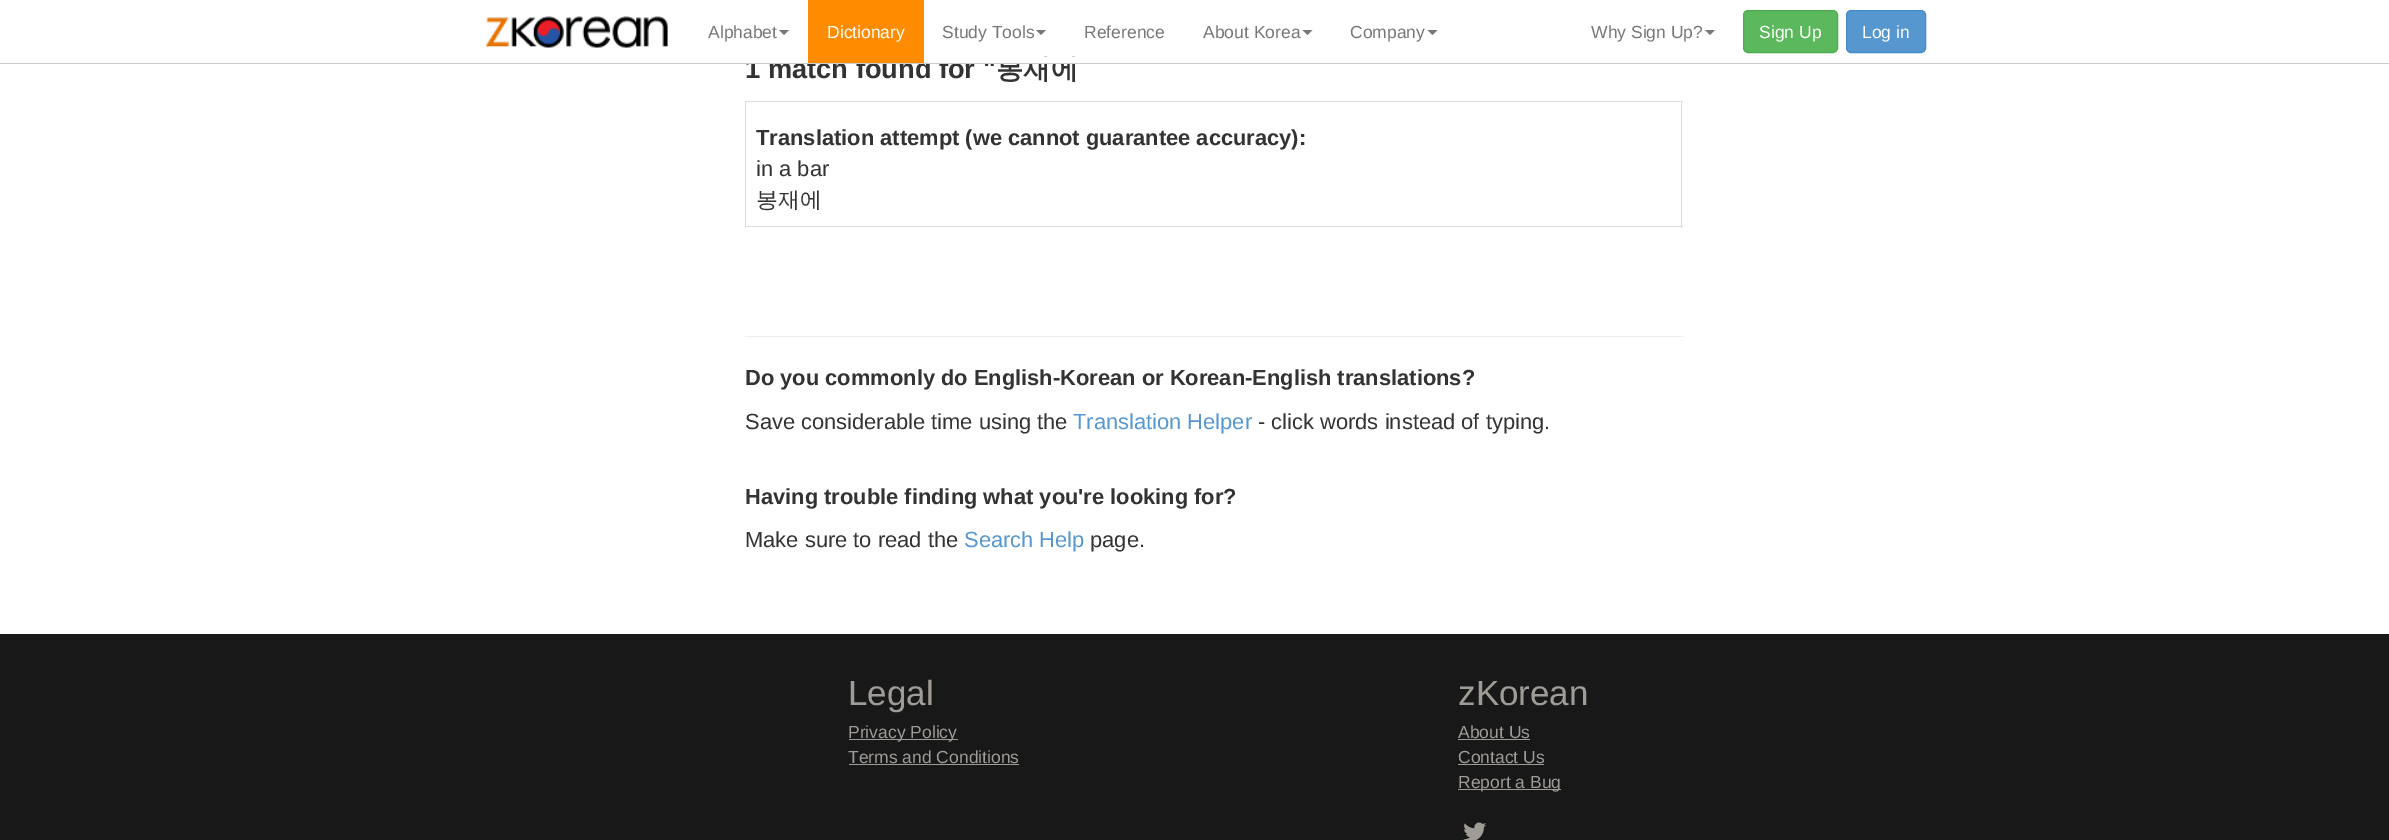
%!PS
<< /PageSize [2389 840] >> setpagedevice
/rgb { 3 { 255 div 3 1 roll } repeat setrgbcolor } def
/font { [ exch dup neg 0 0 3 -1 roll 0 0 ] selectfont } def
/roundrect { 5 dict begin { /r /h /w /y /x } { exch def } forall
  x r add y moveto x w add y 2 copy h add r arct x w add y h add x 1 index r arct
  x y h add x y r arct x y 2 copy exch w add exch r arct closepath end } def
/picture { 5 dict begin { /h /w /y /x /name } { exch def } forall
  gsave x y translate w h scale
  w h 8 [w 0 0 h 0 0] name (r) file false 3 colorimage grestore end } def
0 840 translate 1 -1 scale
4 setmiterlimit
255 255 255 rgb
0 0 2389 840 rectfill
(img/1.rgb) 485 16 183 32 picture
119 119 119 rgb
779 30 moveto 789 30 lineto 784 35 lineto closepath fill
1036 30 moveto 1046 30 lineto 1041 35 lineto closepath fill
1302.5 30 moveto 1312.5 30 lineto 1307.5 35 lineto closepath fill
1427.5 30 moveto 1437.5 30 lineto 1432.5 35 lineto closepath fill
1705 30 moveto 1715 30 lineto 1710 35 lineto closepath fill
92 184 92 rgb
1743.5 10.5 94 42 4.5 roundrect gsave fill grestore
76 174 76 rgb
stroke
86 151 208 rgb
1846.5 10.5 79 42 4.5 roundrect gsave fill grestore
66 139 202 rgb
stroke
[
  [745 101 938 1 221 221 221]
  [1681 101 1 127 221 221 221]
  [745 226 938 1 221 221 221]
  [745 101 1 127 221 221 221]
  [745 336 938 1 238 238 238]
  [0 634 2389 206 24 24 24]
  [849 739 109 1 159 156 152]
  [849 764 170 1 159 156 152]
  [1458 739 72 1 159 156 152]
  [1458 764 86 1 159 156 152]
  [1458 789 103 1 159 156 152]
] { aload pop rgb rectfill } forall
(img/2.rgb) 1463 822 23 18 picture
/LiberationSans-Regular 17.5 font
119 119 119 rgb
[
  [(Alphabet) 708 38]
  [(Study Tools) 942 38]
  [(Reference) 1084 38]
  [(About Korea) 1203 38]
  [(Company) 1350 38]
  [(Why Sign Up?) 1591 38]
] { aload pop moveto show } forall
255 255 255 rgb
1759 38 moveto (Sign Up) show
1862 38 moveto (Log in) show
/LiberationSans-Bold 27.25 font
51 51 51 rgb
745 78 moveto (1 match found for ") show
/WenQuanYiZenHei-Bold 27.25 font
996 78 moveto (봉재에) show
255 255 255 rgb
746 57 329 6 rectfill
255 140 0 rgb
808 0 116 63 rectfill
/LiberationSans-Regular 17.5 font
255 255 255 rgb
827 38 moveto (Dictionary) show
204 204 204 rgb
0 63 2389 1 rectfill
/LiberationSans-Bold 21.9 font
51 51 51 rgb
756 145 moveto (Translation attempt \(we cannot guarantee accuracy\):) show
/LiberationSans-Regular 21.9 font
756 176 moveto (in a bar) show
/WenQuanYiZenHei-Medium 21.9 font
756 207 moveto (봉재에) show
/LiberationSans-Bold 21.9 font
745 385 moveto (Do you commonly do English-Korean or Korean-English translations?) show
/LiberationSans-Regular 21.9 font
745 429 moveto (Save considerable time using the) show
86 151 208 rgb
1073 429 moveto (Translation Helper) show
51 51 51 rgb
1258 429 moveto (- click words instead of typing.) show
/LiberationSans-Bold 21.9 font
745 504 moveto (Having trouble finding what you're looking for?) show
/LiberationSans-Regular 21.9 font
745 547 moveto (Make sure to read the) show
86 151 208 rgb
964 547 moveto (Search Help) show
51 51 51 rgb
1090 547 moveto (page.) show
/LiberationSans-Regular 35 font
159 156 152 rgb
848 705 moveto (Legal) show
/LiberationSans-Regular 17.5 font
848 738 moveto (Privacy Policy) show
848 763 moveto (Terms and Conditions) show
/LiberationSans-Regular 35 font
1458 705 moveto (zKorean) show
/LiberationSans-Regular 17.5 font
[
  [(About Us) 1458 738]
  [(Contact Us) 1458 763]
  [(Report a Bug) 1458 788]
] { aload pop moveto show } forall
showpage
